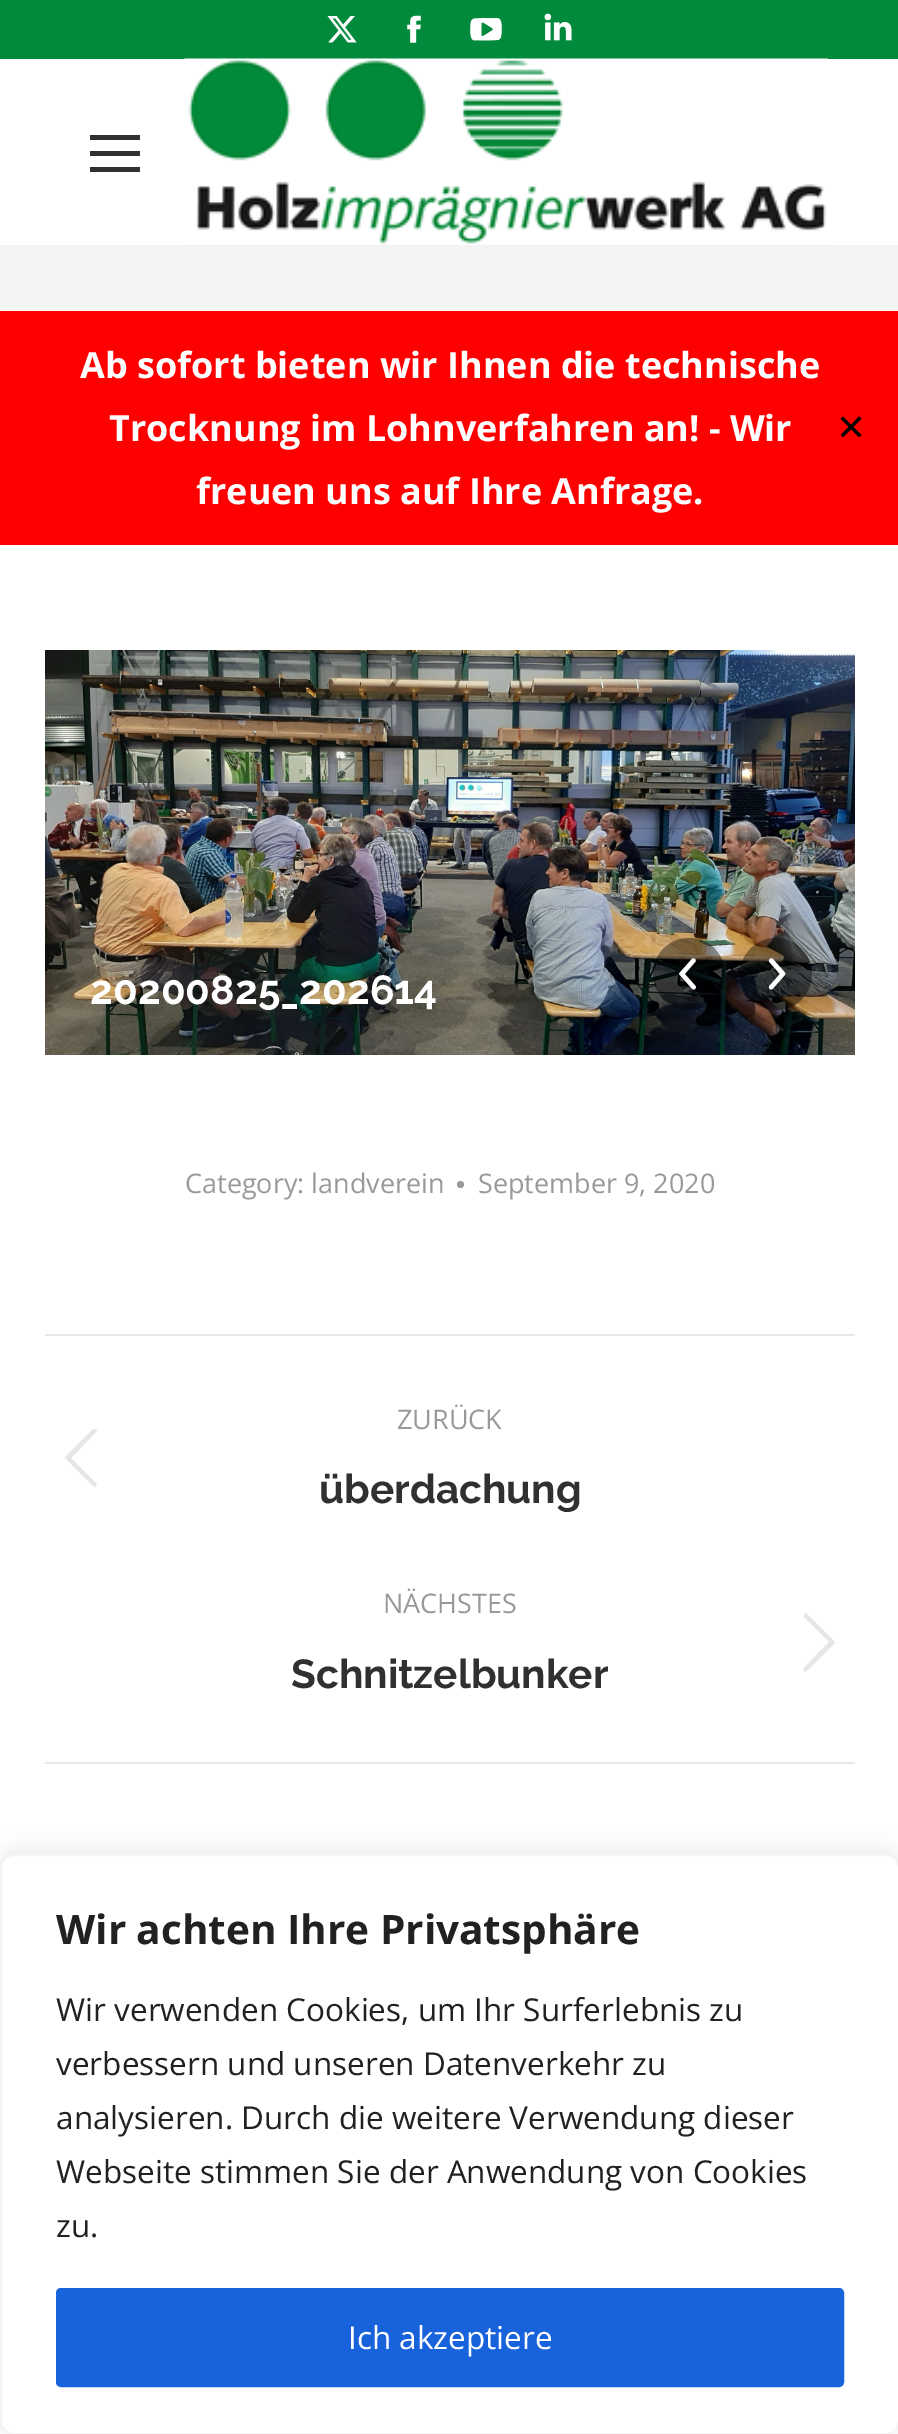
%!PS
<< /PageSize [898 2434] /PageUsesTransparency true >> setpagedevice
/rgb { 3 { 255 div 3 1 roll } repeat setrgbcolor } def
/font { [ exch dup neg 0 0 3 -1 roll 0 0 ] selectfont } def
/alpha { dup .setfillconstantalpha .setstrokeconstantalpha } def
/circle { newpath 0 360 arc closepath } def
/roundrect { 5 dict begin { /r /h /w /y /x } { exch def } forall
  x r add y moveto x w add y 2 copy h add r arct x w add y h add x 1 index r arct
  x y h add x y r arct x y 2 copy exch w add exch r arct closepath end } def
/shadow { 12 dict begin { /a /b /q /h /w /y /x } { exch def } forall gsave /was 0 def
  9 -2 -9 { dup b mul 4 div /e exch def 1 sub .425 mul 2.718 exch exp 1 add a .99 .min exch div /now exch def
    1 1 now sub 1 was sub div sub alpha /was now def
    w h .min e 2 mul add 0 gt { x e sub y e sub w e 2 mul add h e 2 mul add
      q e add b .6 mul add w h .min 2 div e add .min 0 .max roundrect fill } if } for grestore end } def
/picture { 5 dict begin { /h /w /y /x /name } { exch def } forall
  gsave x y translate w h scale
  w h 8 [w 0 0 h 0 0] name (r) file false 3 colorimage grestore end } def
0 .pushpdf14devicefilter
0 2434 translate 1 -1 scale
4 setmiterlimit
255 255 255 rgb
0 0 898 2434 rectfill
255 0 0 rgb
0 311 898 234 rectfill
1 138 59 rgb
0 0 898 59 rectfill
(img/1.rgb) 327 16 30 27 picture
(img/2.rgb) 407 15 14 28 picture
(img/3.rgb) 470 18 32 23 picture
(img/4.rgb) 544 13 28 28 picture
[
  [90 135 50 5 48 48 48]
  [90 151 50 5 48 48 48]
  [90 167 50 5 48 48 48]
  [0 245 898 66 244 244 244]
] { aload pop rgb rectfill } forall
(img/5.rgb) 184 58 644 188 picture
(img/6.rgb) 45 650 810 405 picture
0.4 alpha
0 0 0 rgb
689 974 36 circle fill
1 alpha
(img/7.rgb) 679 958 17 32 picture
0.4 alpha
776 974 36 circle fill
1 alpha
(img/8.rgb) 768 958 18 32 picture
153 153 153 rgb
460.5 1184.5 3.5 circle fill
230 231 233 rgb
45 1334 810 2 rectfill
45 1762 810 2 rectfill
230 230 230 rgb
96 1429 moveto 97 1430 97 1431 96 1432 curveto 71 1458 lineto 96 1483 lineto 97 1484 97 1485 96 1486 curveto 95 1487 94 1487 93 1486 curveto 66 1459 lineto 65 1458 65 1457 66 1456 curveto 93 1429 lineto 94 1429 95 1429 96 1429 curveto closepath fill
804 1614 moveto 805 1613 806 1613 807 1614 curveto 834 1641 lineto 835 1642 835 1643 834 1644 curveto 807 1671 lineto 806 1672 805 1672 804 1671 curveto 803 1670 803 1669 804 1668 curveto 829 1642 lineto 804 1617 lineto closepath fill
172 171 171 rgb
0 1852 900 580 14 11 0.3 shadow
255 255 255 rgb
1 1855 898 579 13 roundrect gsave fill grestore
244 244 244 rgb
2 setlinewidth
stroke
24 99 220 rgb
58.5 2290.5 783 94 2.5 roundrect gsave fill grestore
5 setlinewidth
stroke
/OpenSans-Bold 36 font
255 255 255 rgb
[
  [(Ab sofort bieten wir Ihnen die technische) 80 378]
  [(Trocknung im Lohnverfahren an! - Wir) 109 441]
  [(freuen uns auf Ihre Anfrage.) 196 504]
] { aload pop moveto show } forall
/DejaVuSans-Regular 36 font
0 0 0 rgb
836 440 moveto (✕) show
/Raleway-Bold 40.5 font
255 255 255 rgb
90 1004 moveto (20200825_202614) show
/OpenSans-Regular 27 font
153 153 153 rgb
[
  [(Category: landverein) 185 1193]
  [(September 9, 2020) 478 1193]
  [(ZURÜCK) 397 1429]
] { aload pop moveto show } forall
/Raleway-Bold 40.5 font
48 48 48 rgb
319 1503 moveto (überdachung) show
/OpenSans-Regular 27 font
153 153 153 rgb
383 1613 moveto (NÄCHSTES) show
/Raleway-Bold 40.5 font
48 48 48 rgb
291 1688 moveto (Schnitzelbunker) show
/OpenSans-Bold 40.5 font
33 33 33 rgb
56 1944 moveto (Wir achten Ihre Privatsphäre) show
/OpenSans-Regular 31.5 font
[
  [(Wir verwenden Cookies, um Ihr Surferlebnis zu) 56 2021]
  [(verbessern und unseren Datenverkehr zu) 56 2075]
  [(analysieren. Durch die weitere Verwendung dieser) 56 2129]
  [(Webseite stimmen Sie der Anwendung von Cookies) 56 2183]
  [(zu.) 56 2237]
] { aload pop moveto show } forall
255 255 255 rgb
348 2349 moveto (Ich akzeptiere) show
.poppdf14devicefilter showpage
